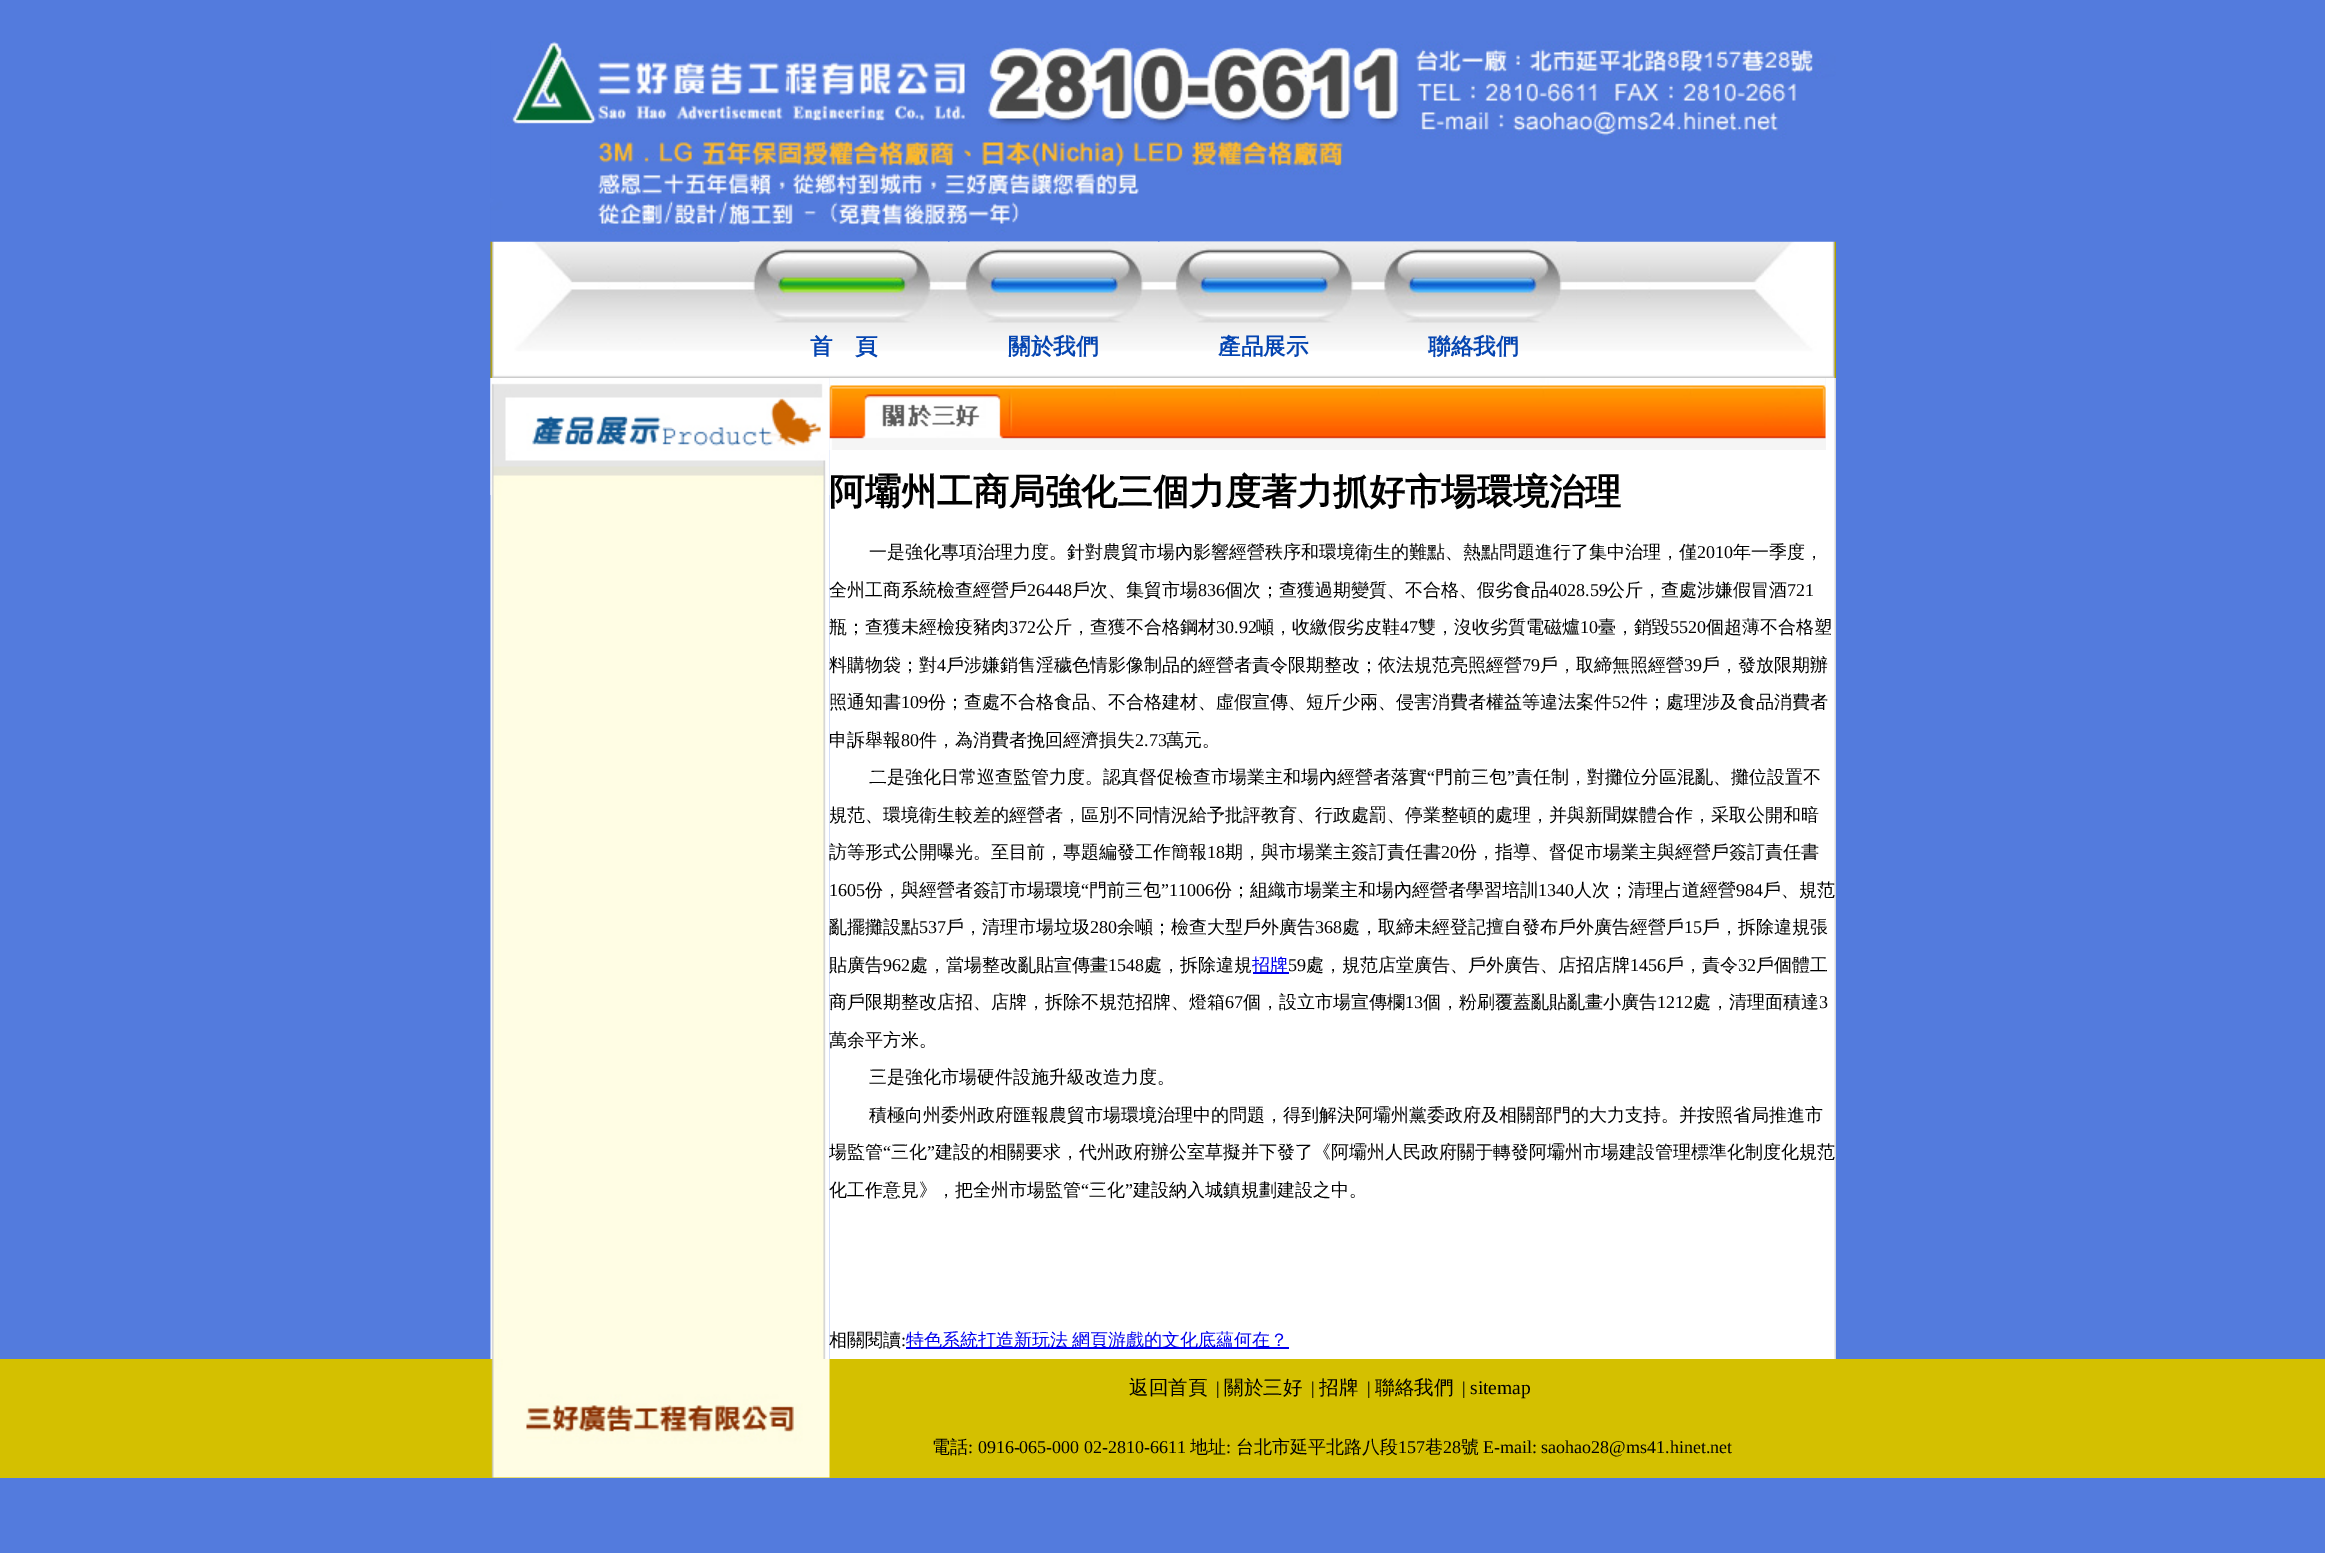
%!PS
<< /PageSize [2325 1553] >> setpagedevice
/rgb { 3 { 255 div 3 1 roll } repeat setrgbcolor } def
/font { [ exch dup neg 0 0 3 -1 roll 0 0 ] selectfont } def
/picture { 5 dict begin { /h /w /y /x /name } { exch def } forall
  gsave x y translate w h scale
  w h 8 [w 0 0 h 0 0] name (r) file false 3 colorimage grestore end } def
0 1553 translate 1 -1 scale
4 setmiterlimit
83 123 221 rgb
0 0 2325 1553 rectfill
(img/2.rgb) 490 241 1346 137 picture
(img/1.rgb) 490 41 1346 201 picture
(img/3.rgb) 739 241 209 82 picture
(img/4.rgb) 949 241 209 82 picture
(img/5.rgb) 1159 241 209 82 picture
(img/6.rgb) 1368 241 209 82 picture
(img/8.rgb) 490 378 340 750 picture
(img/10.rgb) 829 378 1007 981 picture
(img/7.rgb) 490 1128 340 231 picture
245 245 245 rgb
1825 378 1 72 rectfill
(img/11.rgb) 829 378 997 72 picture
(img/9.rgb) 490 378 340 117 picture
[
  [1253 972 36 2 0 0 238]
  [906 1347 383 2 0 0 238]
  [0 1359 2325 119 212 192 0]
] { aload pop rgb rectfill } forall
(img/12.rgb) 491 1359 339 119 picture
/WenQuanYiZenHei-Bold 22.5 font
5 69 177 rgb
[
  [(首　頁) 810 354]
  [(關於我們) 1008 354]
  [(產品展示) 1218 354]
  [(聯絡我們) 1428 354]
] { aload pop moveto show } forall
/WenQuanYiZenHei-Bold 36 font
0 0 0 rgb
829 504 moveto (阿壩州工商局強化三個力度著力抓好市場環境治理) show
/WenQuanYiZenHei-Medium 18 font
869 558 moveto (一是強化專項治理力度。針對農貿市場內影響經營秩序和環境衛生的難點、熱點問題進行了集中治理，僅) show
/LiberationSerif-Regular 18 font
1697 558 moveto (2010) show
/WenQuanYiZenHei-Medium 18 font
1733 558 moveto (年一季度，) show
829 596 moveto (全州工商系統檢查經營戶) show
/LiberationSerif-Regular 18 font
1027 596 moveto (26448) show
/WenQuanYiZenHei-Medium 18 font
1072 596 moveto (戶次、集貿市場) show
/LiberationSerif-Regular 18 font
1198 596 moveto (836) show
/WenQuanYiZenHei-Medium 18 font
1225 596 moveto (個次；查獲過期變質、不合格、假劣食品) show
/LiberationSerif-Regular 18 font
1549 596 moveto (4028.59) show
/WenQuanYiZenHei-Medium 18 font
1607 596 moveto (公斤，查處涉嫌假冒酒) show
/LiberationSerif-Regular 18 font
1787 596 moveto (721) show
/WenQuanYiZenHei-Medium 18 font
829 633 moveto (瓶；查獲未經檢疫豬肉) show
/LiberationSerif-Regular 18 font
1009 633 moveto (372) show
/WenQuanYiZenHei-Medium 18 font
1036 633 moveto (公斤，查獲不合格鋼材) show
/LiberationSerif-Regular 18 font
1216 633 moveto (30.92) show
/WenQuanYiZenHei-Medium 18 font
1256 633 moveto (噸，收繳假劣皮鞋) show
/LiberationSerif-Regular 18 font
1400 633 moveto (47) show
/WenQuanYiZenHei-Medium 18 font
1418 633 moveto (雙，沒收劣質電磁爐) show
/LiberationSerif-Regular 18 font
1580 633 moveto (10) show
/WenQuanYiZenHei-Medium 18 font
1598 633 moveto (臺，銷毀) show
/LiberationSerif-Regular 18 font
1670 633 moveto (5520) show
/WenQuanYiZenHei-Medium 18 font
1706 633 moveto (個超薄不合格塑) show
829 671 moveto (料購物袋；對) show
/LiberationSerif-Regular 18 font
937 671 moveto (4) show
/WenQuanYiZenHei-Medium 18 font
946 671 moveto (戶涉嫌銷售淫穢色情影像制品的經營者責令限期整改；依法規范亮照經營) show
/LiberationSerif-Regular 18 font
1522 671 moveto (79) show
/WenQuanYiZenHei-Medium 18 font
1540 671 moveto (戶，取締無照經營) show
/LiberationSerif-Regular 18 font
1684 671 moveto (39) show
/WenQuanYiZenHei-Medium 18 font
1702 671 moveto (戶，發放限期辦) show
829 708 moveto (照通知書) show
/LiberationSerif-Regular 18 font
901 708 moveto (109) show
/WenQuanYiZenHei-Medium 18 font
928 708 moveto (份；查處不合格食品、不合格建材、虛假宣傳、短斤少兩、侵害消費者權益等違法案件) show
/LiberationSerif-Regular 18 font
1612 708 moveto (52) show
/WenQuanYiZenHei-Medium 18 font
1630 708 moveto (件；處理涉及食品消費者) show
829 746 moveto (申訴舉報) show
/LiberationSerif-Regular 18 font
901 746 moveto (80) show
/WenQuanYiZenHei-Medium 18 font
919 746 moveto (件，為消費者挽回經濟損失) show
/LiberationSerif-Regular 18 font
1135 746 moveto (2.73) show
/WenQuanYiZenHei-Medium 18 font
1166 746 moveto (萬元。) show
869 783 moveto (二是強化日常巡查監管力度。認真督促檢查市場業主和場內經營者落實) show
/LiberationSerif-Regular 18 font
1427 783 moveto (“) show
/WenQuanYiZenHei-Medium 18 font
1435 783 moveto (門前三包) show
/LiberationSerif-Regular 18 font
1507 783 moveto (”) show
/WenQuanYiZenHei-Medium 18 font
[
  [(責任制，對攤位分區混亂、攤位設置不) 1515 783]
  [(規范、環境衛生較差的經營者，區別不同情況給予批評教育、行政處罰、停業整頓的處理，并與新聞媒體合作，采取公開和暗) 829 821]
  [(訪等形式公開曝光。至目前，專題編發工作簡報) 829 858]
] { aload pop moveto show } forall
/LiberationSerif-Regular 18 font
1207 858 moveto (18) show
/WenQuanYiZenHei-Medium 18 font
1225 858 moveto (期，與市場業主簽訂責任書) show
/LiberationSerif-Regular 18 font
1441 858 moveto (20) show
/WenQuanYiZenHei-Medium 18 font
1459 858 moveto (份，指導、督促市場業主與經營戶簽訂責任書) show
/LiberationSerif-Regular 18 font
829 896 moveto (1605) show
/WenQuanYiZenHei-Medium 18 font
865 896 moveto (份，與經營者簽訂市場環境) show
/LiberationSerif-Regular 18 font
1081 896 moveto (“) show
/WenQuanYiZenHei-Medium 18 font
1089 896 moveto (門前三包) show
/LiberationSerif-Regular 18 font
1161 896 moveto (”11006) show
/WenQuanYiZenHei-Medium 18 font
1214 896 moveto (份；組織市場業主和場內經營者學習培訓) show
/LiberationSerif-Regular 18 font
1538 896 moveto (1340) show
/WenQuanYiZenHei-Medium 18 font
1574 896 moveto (人次；清理占道經營) show
/LiberationSerif-Regular 18 font
1736 896 moveto (984) show
/WenQuanYiZenHei-Medium 18 font
1763 896 moveto (戶、規范) show
829 933 moveto (亂擺攤設點) show
/LiberationSerif-Regular 18 font
919 933 moveto (537) show
/WenQuanYiZenHei-Medium 18 font
946 933 moveto (戶，清理市場垃圾) show
/LiberationSerif-Regular 18 font
1090 933 moveto (280) show
/WenQuanYiZenHei-Medium 18 font
1117 933 moveto (余噸；檢查大型戶外廣告) show
/LiberationSerif-Regular 18 font
1315 933 moveto (368) show
/WenQuanYiZenHei-Medium 18 font
1342 933 moveto (處，取締未經登記擅自發布戶外廣告經營戶) show
/LiberationSerif-Regular 18 font
1684 933 moveto (15) show
/WenQuanYiZenHei-Medium 18 font
1702 933 moveto (戶，拆除違規張) show
829 971 moveto (貼廣告) show
/LiberationSerif-Regular 18 font
883 971 moveto (962) show
/WenQuanYiZenHei-Medium 18 font
910 971 moveto (處，當場整改亂貼宣傳畫) show
/LiberationSerif-Regular 18 font
1108 971 moveto (1548) show
/WenQuanYiZenHei-Medium 18 font
1144 971 moveto (處，拆除違規) show
0 0 238 rgb
1252 971 moveto (招牌) show
/LiberationSerif-Regular 18 font
0 0 0 rgb
1288 971 moveto (59) show
/WenQuanYiZenHei-Medium 18 font
1306 971 moveto (處，規范店堂廣告、戶外廣告、店招店牌) show
/LiberationSerif-Regular 18 font
1630 971 moveto (1456) show
/WenQuanYiZenHei-Medium 18 font
1666 971 moveto (戶，責令) show
/LiberationSerif-Regular 18 font
1738 971 moveto (32) show
/WenQuanYiZenHei-Medium 18 font
1756 971 moveto (戶個體工) show
829 1008 moveto (商戶限期整改店招、店牌，拆除不規范招牌、燈箱) show
/LiberationSerif-Regular 18 font
1225 1008 moveto (67) show
/WenQuanYiZenHei-Medium 18 font
1243 1008 moveto (個，設立市場宣傳欄) show
/LiberationSerif-Regular 18 font
1405 1008 moveto (13) show
/WenQuanYiZenHei-Medium 18 font
1423 1008 moveto (個，粉刷覆蓋亂貼亂畫小廣告) show
/LiberationSerif-Regular 18 font
1657 1008 moveto (1212) show
/WenQuanYiZenHei-Medium 18 font
1693 1008 moveto (處，清理面積達) show
/LiberationSerif-Regular 18 font
1819 1008 moveto (3) show
/WenQuanYiZenHei-Medium 18 font
[
  [(萬余平方米。) 829 1046]
  [(三是強化市場硬件設施升級改造力度。) 869 1083]
  [(積極向州委州政府匯報農貿市場環境治理中的問題，得到解決阿壩州黨委政府及相關部門的大力支持。并按照省局推進市) 869 1121]
  [(場監管) 829 1158]
] { aload pop moveto show } forall
/LiberationSerif-Regular 18 font
883 1158 moveto (“) show
/WenQuanYiZenHei-Medium 18 font
891 1158 moveto (三化) show
/LiberationSerif-Regular 18 font
927 1158 moveto (”) show
/WenQuanYiZenHei-Medium 18 font
935 1158 moveto (建設的相關要求，代州政府辦公室草擬并下發了《阿壩州人民政府關于轉發阿壩州市場建設管理標準化制度化規范) show
829 1196 moveto (化工作意見》，把全州市場監管) show
/LiberationSerif-Regular 18 font
1081 1196 moveto (“) show
/WenQuanYiZenHei-Medium 18 font
1089 1196 moveto (三化) show
/LiberationSerif-Regular 18 font
1125 1196 moveto (”) show
/WenQuanYiZenHei-Medium 18 font
1133 1196 moveto (建設納入城鎮規劃建設之中。) show
829 1346 moveto (相關閱讀) show
/LiberationSerif-Regular 18 font
901 1346 moveto (:) show
/WenQuanYiZenHei-Medium 18 font
0 0 238 rgb
906 1346 moveto -1 0 32 (特色系統打造新玩法 網頁游戲的文化底蘊何在？) widthshow
/WenQuanYiZenHei-Medium 19.5 font
0 0 0 rgb
1129 1394 moveto (返回首頁) show
/LiberationSerif-Regular 18 font
1216 1394 moveto (|) show
/WenQuanYiZenHei-Medium 19.5 font
1224 1394 moveto (關於三好) show
/LiberationSerif-Regular 18 font
1311 1394 moveto (|) show
/WenQuanYiZenHei-Medium 19.5 font
1319 1394 moveto (招牌) show
/LiberationSerif-Regular 18 font
1367 1394 moveto (|) show
/WenQuanYiZenHei-Medium 19.5 font
1375 1394 moveto (聯絡我們) show
/LiberationSerif-Regular 18 font
1462 1394 moveto (|) show
/LiberationSerif-Regular 19.5 font
1470 1394 moveto (sitemap) show
/WenQuanYiZenHei-Medium 18 font
932 1453 moveto (電話) show
/LiberationSerif-Regular 18 font
968 1453 moveto (: 0916-065-000 02-2810-6611) show
/WenQuanYiZenHei-Medium 18 font
1190 1453 moveto (地址) show
/LiberationSerif-Regular 18 font
1226 1453 moveto (:) show
/WenQuanYiZenHei-Medium 18 font
1236 1453 moveto (台北市延平北路八段) show
/LiberationSerif-Regular 18 font
1398 1453 moveto (157) show
/WenQuanYiZenHei-Medium 18 font
1425 1453 moveto (巷) show
/LiberationSerif-Regular 18 font
1443 1453 moveto (28) show
/WenQuanYiZenHei-Medium 18 font
1461 1453 moveto (號) show
/LiberationSerif-Regular 18 font
1483 1453 moveto (E-mail: saohao28@ms41.hinet.net) show
showpage
